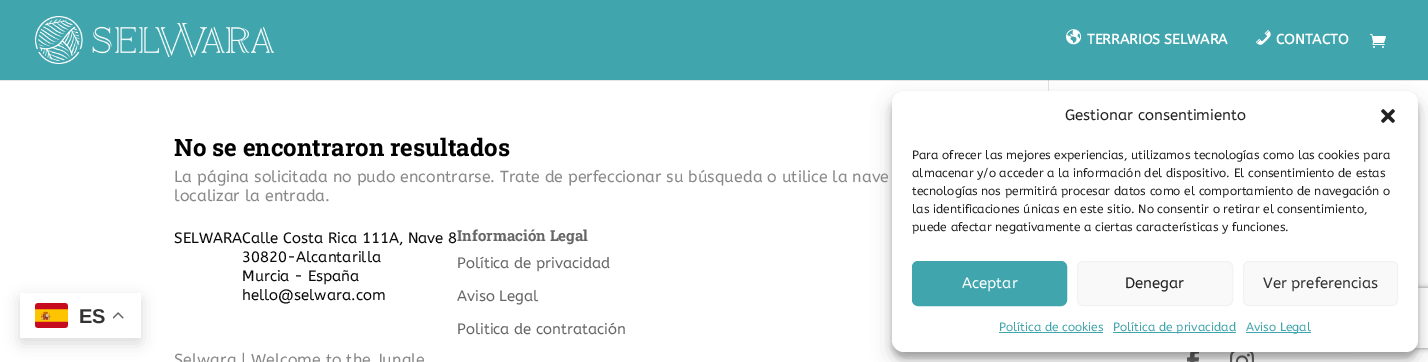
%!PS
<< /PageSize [1428 362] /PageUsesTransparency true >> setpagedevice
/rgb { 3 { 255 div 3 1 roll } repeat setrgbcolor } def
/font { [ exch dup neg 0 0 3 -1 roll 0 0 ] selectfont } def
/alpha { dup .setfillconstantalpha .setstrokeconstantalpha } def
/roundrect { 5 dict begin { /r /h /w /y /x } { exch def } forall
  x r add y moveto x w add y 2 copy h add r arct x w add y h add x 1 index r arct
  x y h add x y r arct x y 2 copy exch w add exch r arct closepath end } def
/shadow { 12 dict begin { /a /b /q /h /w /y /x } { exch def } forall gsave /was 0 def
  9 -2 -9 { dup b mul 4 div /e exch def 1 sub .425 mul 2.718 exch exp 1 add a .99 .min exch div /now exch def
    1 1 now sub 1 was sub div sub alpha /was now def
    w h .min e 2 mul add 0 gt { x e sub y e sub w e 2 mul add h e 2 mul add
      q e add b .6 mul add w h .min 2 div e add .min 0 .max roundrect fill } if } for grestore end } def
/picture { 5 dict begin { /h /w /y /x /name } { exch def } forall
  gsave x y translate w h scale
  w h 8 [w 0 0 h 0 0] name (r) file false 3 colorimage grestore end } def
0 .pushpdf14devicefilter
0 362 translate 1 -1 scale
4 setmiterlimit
255 255 255 rgb
0 0 1428 362 rectfill
226 226 226 rgb
1048 80 1 11 rectfill
(img/5.rgb) 1187 352 12 10 picture
(img/6.rgb) 1230 352 24 10 picture
0 0 0 rgb
892 101 526 261 12 10 0.19 shadow
0.1 alpha
0 80 1428 1 rectfill
1 alpha
65 165 173 rgb
0 0 1428 80 rectfill
(img/1.rgb) 35 16 239 48 picture
(img/2.rgb) 1066 29 16 16 picture
(img/3.rgb) 1255 30 16 15 picture
(img/4.rgb) 1370 34 16 14 picture
0 0 0 rgb
892 97 526 261 12 3 0.23 shadow
gsave
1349 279 moveto 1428 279 lineto 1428 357 lineto 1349 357 lineto closepath 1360 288 moveto 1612 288 lineto 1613 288 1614 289 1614 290 curveto 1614 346 lineto 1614 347 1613 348 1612 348 curveto 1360 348 lineto 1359 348 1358 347 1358 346 curveto 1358 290 lineto 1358 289 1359 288 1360 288 curveto closepath eoclip newpath
128 128 128 rgb
1358 288 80 60 2 2.5 1 shadow
grestore
255 255 255 rgb
892 91 526 261 12 roundrect fill
(img/7.rgb) 1381 109 14 14 picture
65 165 173 rgb
912.5 261.5 154 44 5.5 roundrect gsave fill grestore
stroke
249 249 249 rgb
1077.5 261.5 155 44 5.5 roundrect gsave fill grestore
242 242 242 rgb
stroke
249 249 249 rgb
1243.5 261.5 154 44 5.5 roundrect gsave fill grestore
242 242 242 rgb
stroke
[
  [999 332 104 1 65 165 173]
  [1113 332 123 1 65 165 173]
  [1246 332 65 1 65 165 173]
] { aload pop rgb rectfill } forall
0 0 0 rgb
20 298 121 45 2 7.5 0.15 shadow
255 255 255 rgb
20 293 121 45 2 roundrect fill
(img/8.rgb) 35 303 33 25 picture
(img/9.rgb) 113 312 11 7 picture
/ABeeZee-Bold 14 font
1087 44 moveto (TERRARIOS SELWARA) show
1276 44 moveto (CONTACTO) show
/RobotoSlab-Bold 24 font
0 0 0 rgb
174 156 moveto (No se encontraron resultados) show
/ABeeZee-Regular 16 font
137 137 137 rgb
174 182 moveto (La página solicitada no pudo encontrarse. Trate de perfeccionar su búsqueda o utilice la nave) show
174 201 moveto (localizar la entrada.) show
/ABeeZee-Regular 15 font
10 10 10 rgb
[
  [(SELWARACalle Costa Rica 111A, Nave 8) 174 243]
  [(30820-Alcantarilla) 242 262]
  [(Murcia - España) 242 281]
  [(hello@selwara.com) 242 300]
] { aload pop moveto show } forall
/RobotoSlab-Bold 15 font
102 102 102 rgb
457 241 moveto (Información Legal) show
/ABeeZee-Regular 15 font
[
  [(Política de privacidad) 457 268]
  [(Aviso Legal) 457 301]
  [(Politica de contratación) 457 334]
] { aload pop moveto show } forall
/ABeeZee-Regular 16 font
137 137 137 rgb
174 365 moveto (Selwara | Welcome to the Jungle) show
/ABeeZee-Regular 15 font
34 34 34 rgb
1065 120 moveto (Gestionar consentimiento) show
/ABeeZee-Regular 12 font
[
  [(Para ofrecer las mejores experiencias, utilizamos tecnologías como las cookies para) 912 159]
  [(almacenar y/o acceder a la información del dispositivo. El consentimiento de estas) 912 177]
  [(tecnologías nos permitirá procesar datos como el comportamiento de navegación o) 912 195]
  [(las identificaciones únicas en este sitio. No consentir o retirar el consentimiento,) 912 213]
  [(puede afectar negativamente a ciertas características y funciones.) 912 231]
] { aload pop moveto show } forall
/ABeeZee-Regular 15 font
255 255 255 rgb
962 288 moveto (Aceptar) show
34 34 34 rgb
1125 288 moveto (Denegar) show
51 51 51 rgb
1263 288 moveto (Ver preferencias) show
/ABeeZee-Regular 12 font
65 165 173 rgb
[
  [(Política de cookies) 999 331]
  [(Política de privacidad) 1113 331]
  [(Aviso Legal) 1246 331]
] { aload pop moveto show } forall
/LiberationSans-Bold 20 font
51 51 51 rgb
79 323 moveto (ES) show
.poppdf14devicefilter showpage
